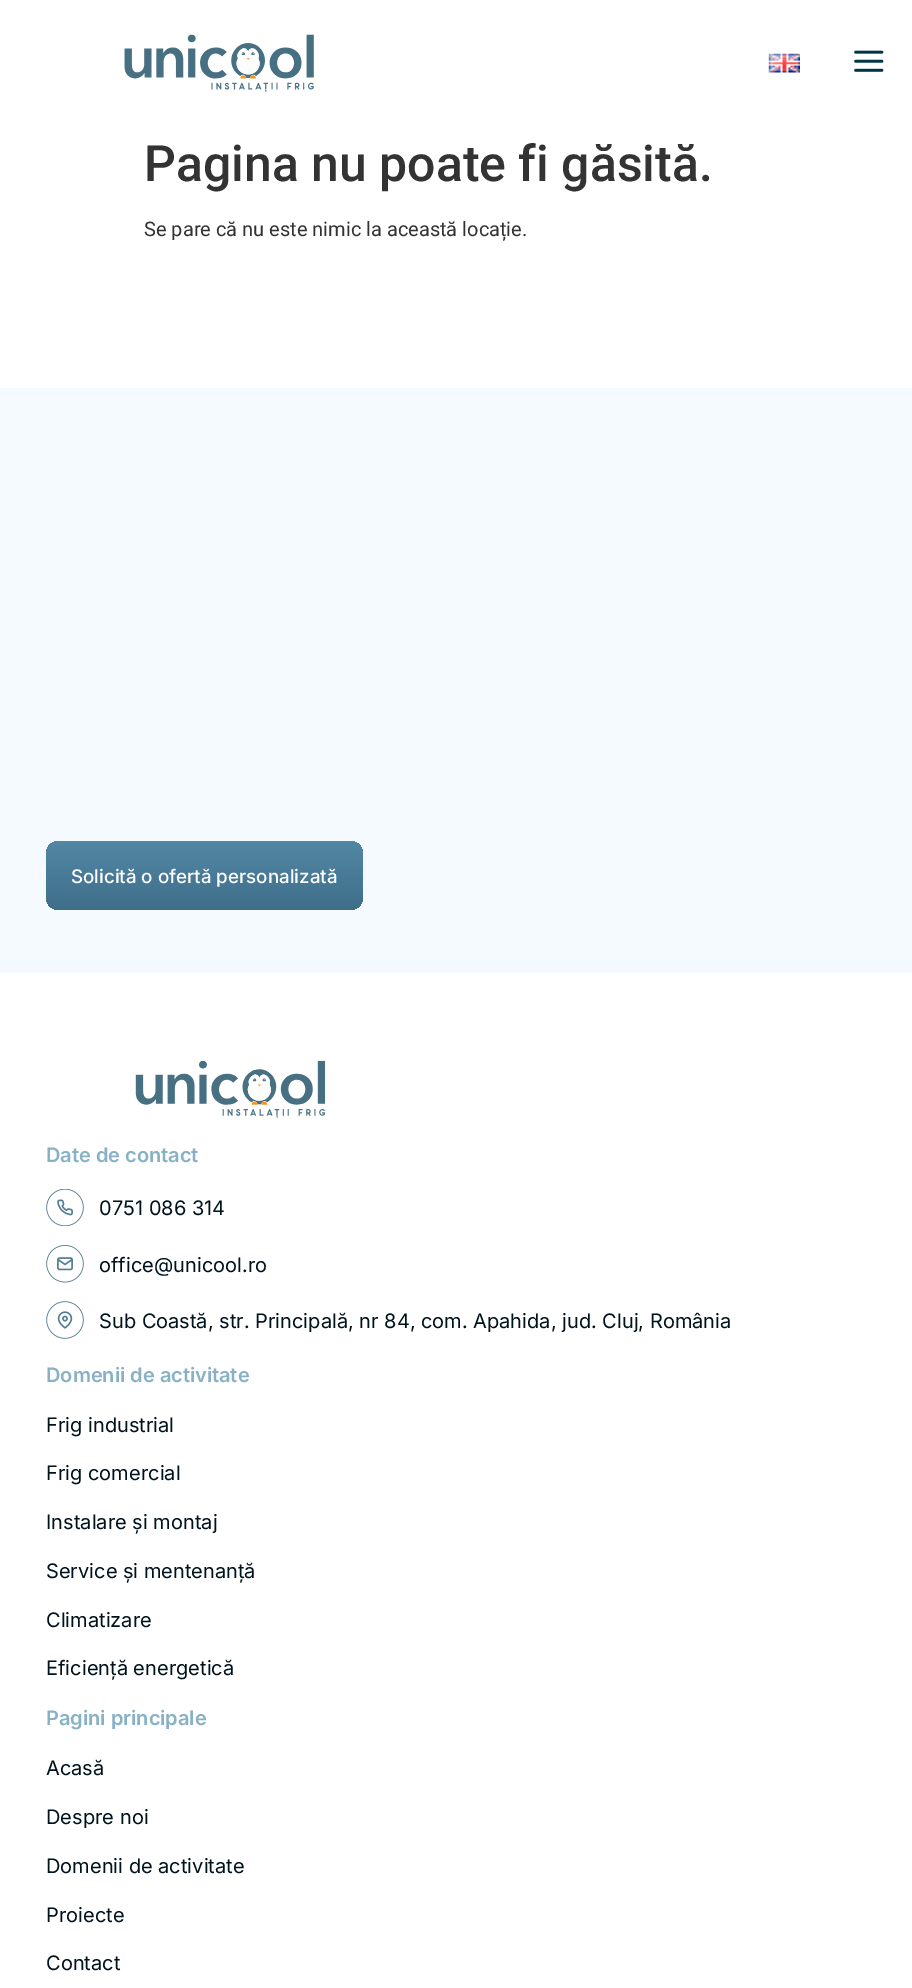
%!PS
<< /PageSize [912 1988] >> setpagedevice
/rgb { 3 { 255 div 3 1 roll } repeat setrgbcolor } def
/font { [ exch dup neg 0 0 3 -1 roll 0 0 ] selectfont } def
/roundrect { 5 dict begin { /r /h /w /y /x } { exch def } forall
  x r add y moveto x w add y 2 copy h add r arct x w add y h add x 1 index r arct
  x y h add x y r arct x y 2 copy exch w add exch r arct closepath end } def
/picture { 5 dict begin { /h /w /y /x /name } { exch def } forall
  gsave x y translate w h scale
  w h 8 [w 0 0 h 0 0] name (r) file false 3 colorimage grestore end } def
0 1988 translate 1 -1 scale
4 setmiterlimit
255 255 255 rgb
0 0 912 1988 rectfill
(img/1.rgb) 124 34 190 58 picture
(img/2.rgb) 768 53 32 20 picture
(img/3.rgb) 854 50 30 22 picture
244 250 255 rgb
0 388 912 585 rectfill
gsave 46 841 317 69 13 roundrect clip newpath
<< /ShadingType 2 /ColorSpace /DeviceRGB /Coords [204 910 204 841] /Extend [true true] /Function << /FunctionType 2 /Domain [0 1] /C0 [0.247 0.431 0.541] /C1 [0.322 0.533 0.647] /N 1 >> >> shfill grestore
(img/4.rgb) 135 1060 191 59 picture
(img/5.rgb) 46 1189 38 37 picture
(img/6.rgb) 46 1245 38 38 picture
(img/7.rgb) 46 1301 38 38 picture
/Roboto-Medium 50 font
51 51 51 rgb
144 181 moveto (Pagina nu poate fi găsită.) show
/Roboto-Regular 20 font
144 236 moveto (Se pare că nu este nimic la această locație.) show
/Inter-Medium 18.75 font
255 255 255 rgb
71 883 moveto (Solicită o ofertă personalizată) show
/Inter-SemiBold 20 font
136 177 198 rgb
46 1162 moveto (Date de contact) show
/Inter-Regular 20 font
0 19 28 rgb
[
  [(0751 086 314) 99 1215]
  [(office@unicool.ro) 99 1272]
  [(Sub Coastă, str. Principală, nr 84, com. Apahida, jud. Cluj, România) 99 1328]
] { aload pop moveto show } forall
/Inter-SemiBold 20 font
136 177 198 rgb
46 1382 moveto (Domenii de activitate) show
/Inter-Regular 20 font
0 19 28 rgb
[
  [(Frig industrial) 46 1432]
  [(Frig comercial) 46 1480]
  [(Instalare și montaj) 46 1529]
  [(Service și mentenanță) 46 1578]
  [(Climatizare) 46 1627]
  [(Eficiență energetică) 46 1675]
] { aload pop moveto show } forall
/Inter-SemiBold 20 font
136 177 198 rgb
46 1725 moveto (Pagini principale) show
/Inter-Regular 20 font
0 19 28 rgb
[
  [(Acasă) 46 1775]
  [(Despre noi) 46 1824]
  [(Domenii de activitate) 46 1873]
  [(Proiecte) 46 1922]
  [(Contact) 46 1970]
] { aload pop moveto show } forall
showpage
